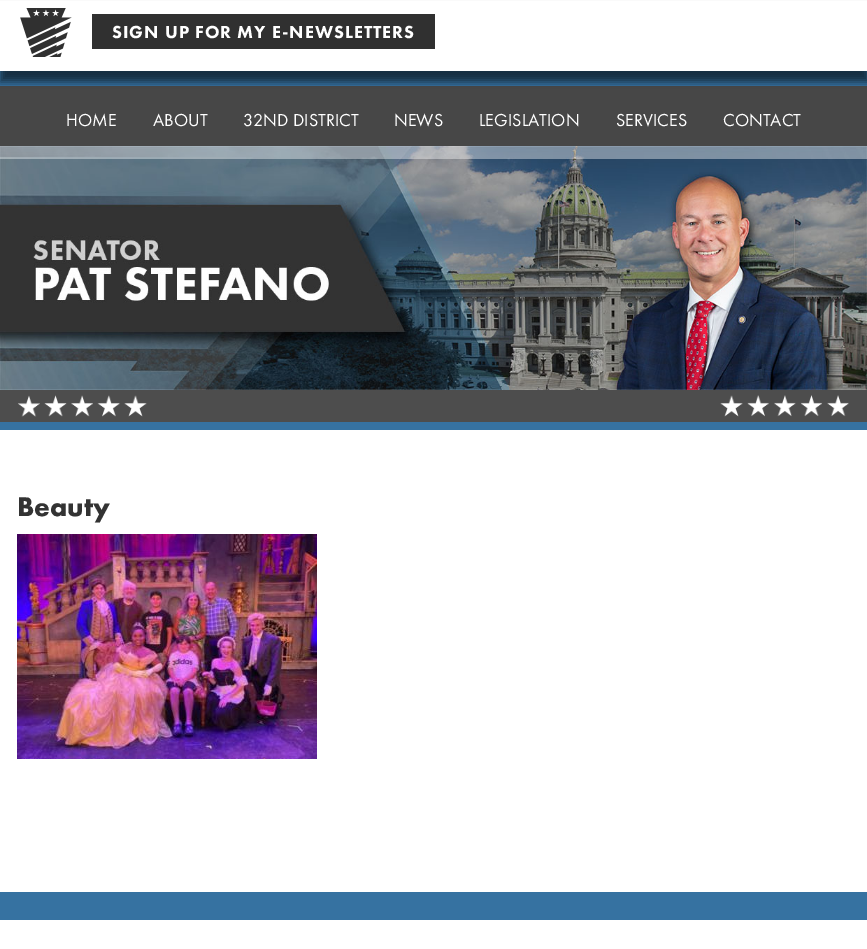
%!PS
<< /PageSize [867 949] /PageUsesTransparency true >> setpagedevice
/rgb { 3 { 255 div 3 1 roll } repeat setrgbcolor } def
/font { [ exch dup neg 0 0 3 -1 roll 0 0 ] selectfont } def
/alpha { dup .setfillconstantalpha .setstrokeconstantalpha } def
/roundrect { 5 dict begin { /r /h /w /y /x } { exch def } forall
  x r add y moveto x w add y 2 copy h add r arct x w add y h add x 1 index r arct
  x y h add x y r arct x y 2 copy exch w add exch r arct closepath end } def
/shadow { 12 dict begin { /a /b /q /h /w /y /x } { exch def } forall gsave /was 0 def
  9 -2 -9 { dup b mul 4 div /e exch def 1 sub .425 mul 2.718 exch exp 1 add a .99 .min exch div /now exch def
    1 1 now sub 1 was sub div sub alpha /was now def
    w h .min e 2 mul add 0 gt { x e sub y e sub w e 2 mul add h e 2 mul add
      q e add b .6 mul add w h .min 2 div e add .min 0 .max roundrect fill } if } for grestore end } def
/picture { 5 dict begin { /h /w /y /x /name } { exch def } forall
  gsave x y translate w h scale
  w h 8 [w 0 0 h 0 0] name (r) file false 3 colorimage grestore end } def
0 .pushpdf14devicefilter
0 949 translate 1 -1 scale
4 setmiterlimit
255 255 255 rgb
0 0 867 949 rectfill
54 114 161 rgb
0 71 867 15 rectfill
0 0 0 rgb
0 9 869 73 0 4 0.59 shadow
255 255 255 rgb
0 1 867 70 rectfill
(img/1.rgb) 20 8 52 49 picture
48 48 48 rgb
92 14 343 35 rectfill
0.9 alpha
51 51 51 rgb
0 86 867 60 rectfill
1 alpha
(img/2.rgb) 0 146 867 244 picture
0.4 alpha
255 255 255 rgb
0 146 867 13 rectfill
1 alpha
54 114 161 rgb
0 422 867 8 rectfill
(img/3.rgb) 0 390 867 32 picture
(img/4.rgb) 17 534 300 225 picture
0 892 867 28 rectfill
/FuturaPT-Black 18 font
255 255 255 rgb
112 38 moveto 1 0 (SIGN UP FOR MY E-NEWSLETTERS) ashow
/FuturaPT-Regular 18 font
[
  [(HOME) 66 126]
  [(ABOUT) 153 126]
  [(32ND DISTRICT) 243 126]
  [(NEWS) 394 126]
  [(LEGISLATION) 479 126]
  [(SERVICES) 616 126]
  [(CONTACT) 723 126]
] { aload pop moveto show } forall
/FuturaPT-Bold 28 font
51 51 51 rgb
17 516 moveto (Beauty) show
.poppdf14devicefilter showpage
